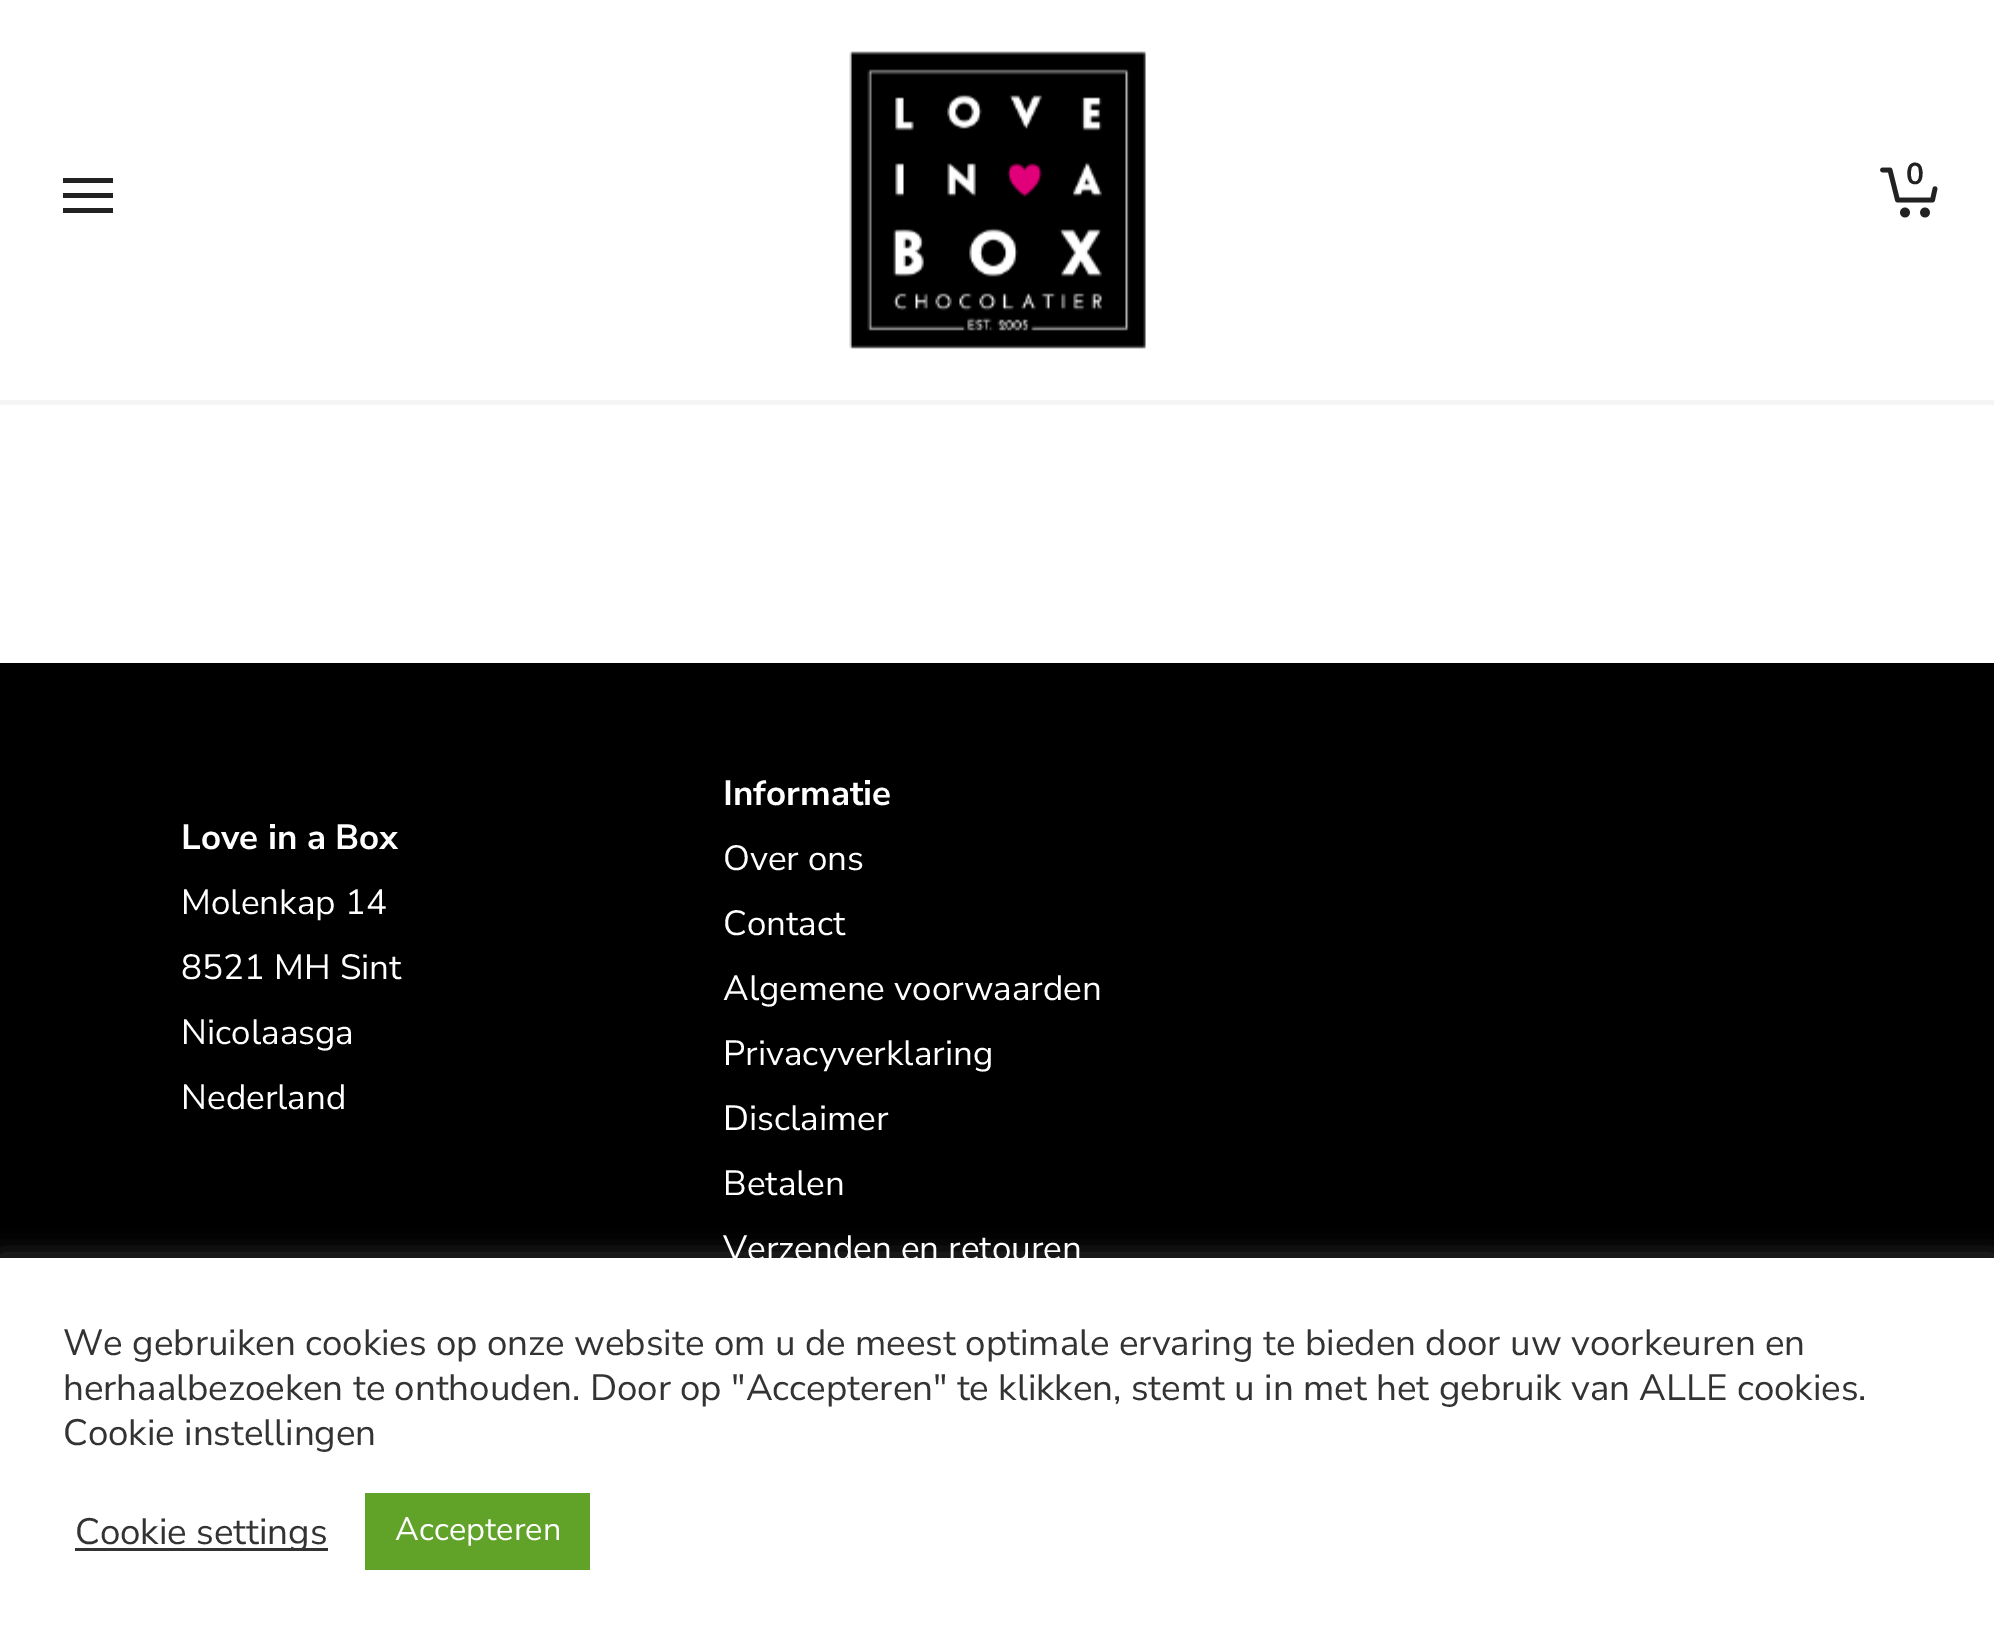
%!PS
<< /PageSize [1994 1645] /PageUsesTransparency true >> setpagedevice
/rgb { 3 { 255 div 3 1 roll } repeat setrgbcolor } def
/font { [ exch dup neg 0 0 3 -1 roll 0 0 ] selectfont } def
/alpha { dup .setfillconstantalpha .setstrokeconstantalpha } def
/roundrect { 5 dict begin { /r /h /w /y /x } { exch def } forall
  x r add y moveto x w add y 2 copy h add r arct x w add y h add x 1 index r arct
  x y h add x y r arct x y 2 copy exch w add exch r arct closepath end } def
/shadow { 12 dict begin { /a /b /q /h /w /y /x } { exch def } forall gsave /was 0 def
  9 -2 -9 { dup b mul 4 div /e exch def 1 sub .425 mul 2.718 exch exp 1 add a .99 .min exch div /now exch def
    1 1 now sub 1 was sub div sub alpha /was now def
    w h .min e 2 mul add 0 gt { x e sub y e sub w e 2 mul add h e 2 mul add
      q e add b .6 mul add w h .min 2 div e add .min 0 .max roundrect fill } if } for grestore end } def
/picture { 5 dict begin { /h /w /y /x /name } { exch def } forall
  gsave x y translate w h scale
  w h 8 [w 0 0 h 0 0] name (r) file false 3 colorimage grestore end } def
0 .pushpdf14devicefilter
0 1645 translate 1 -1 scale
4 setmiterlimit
255 255 255 rgb
0 0 1994 1645 rectfill
245 245 245 rgb
0 400 1994 5 rectfill
(img/1.rgb) 849 51 297 298 picture
(img/2.rgb) 1880 167 58 51 picture
[
  [63 193 50 5 34 34 34]
  [63 178 50 5 34 34 34]
  [63 208 50 5 34 34 34]
  [0 663 1994 595 0 0 0]
] { aload pop rgb rectfill } forall
172 171 171 rgb
0 1255 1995 388 0 12.5 0.3 shadow
[
  [0 1258 1994 387 255 255 255]
  [75 1548 253 3 51 51 51]
  [365 1493 225 77 97 162 41]
] { aload pop rgb rectfill } forall
/NunitoSans-Bold 30 font
34 34 34 rgb
1906 184 moveto (0) show
/NunitoSans-Bold 35 font
255 255 255 rgb
181 849 moveto (Love in a Box) show
/NunitoSans-Regular 35 font
[
  [(Molenkap 14) 181 914]
  [(8521 MH Sint) 181 979]
  [(Nicolaasga) 181 1044]
  [(Nederland) 181 1109]
] { aload pop moveto show } forall
/NunitoSans-Bold 35 font
723 805 moveto (Informatie) show
/NunitoSans-Regular 35 font
[
  [(Over ons) 723 870]
  [(Contact) 723 935]
  [(Algemene voorwaarden) 723 1000]
  [(Privacyverklaring) 723 1065]
  [(Disclaimer) 723 1130]
  [(Betalen) 723 1195]
  [(Verzenden en retouren) 723 1260]
] { aload pop moveto show } forall
/NunitoSans-Regular 36.65 font
51 51 51 rgb
[
  [(We gebruiken cookies op onze website om u de meest optimale ervaring te bieden door uw voorkeuren en) 63 1355]
  [(herhaalbezoeken te onthouden. Door op "Accepteren" te klikken, stemt u in met het gebruik van ALLE cookies.) 63 1400]
  [(Cookie instellingen) 63 1445]
  [(Cookie settings) 75 1544]
] { aload pop moveto show } forall
/NunitoSans-Regular 32.5 font
255 255 255 rgb
395 1540 moveto (Accepteren) show
.poppdf14devicefilter showpage
